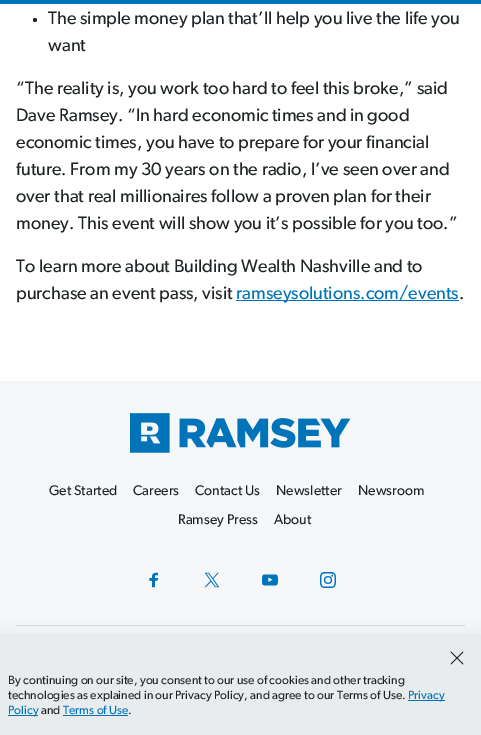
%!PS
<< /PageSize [481 735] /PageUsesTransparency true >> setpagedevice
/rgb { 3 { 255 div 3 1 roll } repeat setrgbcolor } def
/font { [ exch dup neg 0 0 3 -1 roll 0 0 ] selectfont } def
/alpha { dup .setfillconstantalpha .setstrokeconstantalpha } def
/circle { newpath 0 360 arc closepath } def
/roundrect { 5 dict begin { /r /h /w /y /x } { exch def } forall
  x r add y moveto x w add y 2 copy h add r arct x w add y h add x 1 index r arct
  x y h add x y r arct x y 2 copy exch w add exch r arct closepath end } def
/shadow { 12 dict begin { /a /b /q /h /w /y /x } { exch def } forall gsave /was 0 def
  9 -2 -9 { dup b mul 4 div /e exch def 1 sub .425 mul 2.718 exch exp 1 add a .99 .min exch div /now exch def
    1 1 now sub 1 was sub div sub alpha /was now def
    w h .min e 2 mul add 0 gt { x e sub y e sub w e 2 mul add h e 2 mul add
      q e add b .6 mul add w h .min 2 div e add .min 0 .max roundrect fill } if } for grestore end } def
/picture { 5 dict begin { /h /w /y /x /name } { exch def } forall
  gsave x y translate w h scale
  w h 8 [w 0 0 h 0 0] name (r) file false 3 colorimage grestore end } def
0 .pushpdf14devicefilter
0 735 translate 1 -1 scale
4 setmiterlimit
245 247 248 rgb
0 0 481 735 rectfill
0 115 185 rgb
0 0 481 4 rectfill
255 255 255 rgb
0 4 481 377 rectfill
31 36 38 rgb
35 20 2 circle fill
0 115 185 rgb
236 300 223 1 rectfill
(img/1.rgb) 130 413 221 40 picture
(img/2.rgb) 149 572 10 16 picture
(img/3.rgb) 204 572 16 16 picture
(img/4.rgb) 262 574 16 12 picture
(img/5.rgb) 320 572 16 16 picture
213 217 219 rgb
16 625 449 1 rectfill
31 36 38 rgb
0 642 481 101 0 12 0.18 shadow
232 236 237 rgb
0 634 481 101 rectfill
(img/6.rgb) 450 651 14 14 picture
[
  [408 700 37 1 0 115 185]
  [8 715 30 1 0 115 185]
  [63 715 65 1 0 115 185]
] { aload pop rgb rectfill } forall
/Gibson-Regular 18 font
31 36 38 rgb
[
  [(The simple money plan that’ll help you live the life you) 48 24]
  [(want) 48 51]
  [(“The reality is, you work too hard to feel this broke,” said) 16 94]
  [(Dave Ramsey. “In hard economic times and in good) 16 121]
  [(economic times, you have to prepare for your financial) 16 148]
  [(future. From my 30 years on the radio, I’ve seen over and) 16 175]
  [(over that real millionaires follow a proven plan for their) 16 202]
  [(money. This event will show you it’s possible for you too.”) 16 229]
  [(To learn more about Building Wealth Nashville and to) 16 272]
  [(purchase an event pass, visit) 16 299]
] { aload pop moveto show } forall
0 115 185 rgb
236 299 moveto (ramseysolutions.com/events) show
31 36 38 rgb
459 299 moveto (.) show
/Gibson-Regular 14 font
[
  [(Get Started) 49 495]
  [(Careers) 133 495]
  [(Contact Us) 195 495]
  [(Newsletter) 276 495]
  [(Newsroom) 358 495]
  [(Ramsey Press) 178 524]
  [(About) 274 524]
] { aload pop moveto show } forall
/Gibson-Regular 12 font
8 684 moveto (By continuing on our site, you consent to our use of cookies and other tracking) show
8 699 moveto (technologies as explained in our Privacy Policy, and agree to our Terms of Use.) show
0 115 185 rgb
408 699 moveto (Privacy) show
8 714 moveto (Policy) show
31 36 38 rgb
41 714 moveto (and) show
0 115 185 rgb
63 714 moveto (Terms of Use) show
31 36 38 rgb
128 714 moveto (.) show
.poppdf14devicefilter showpage
